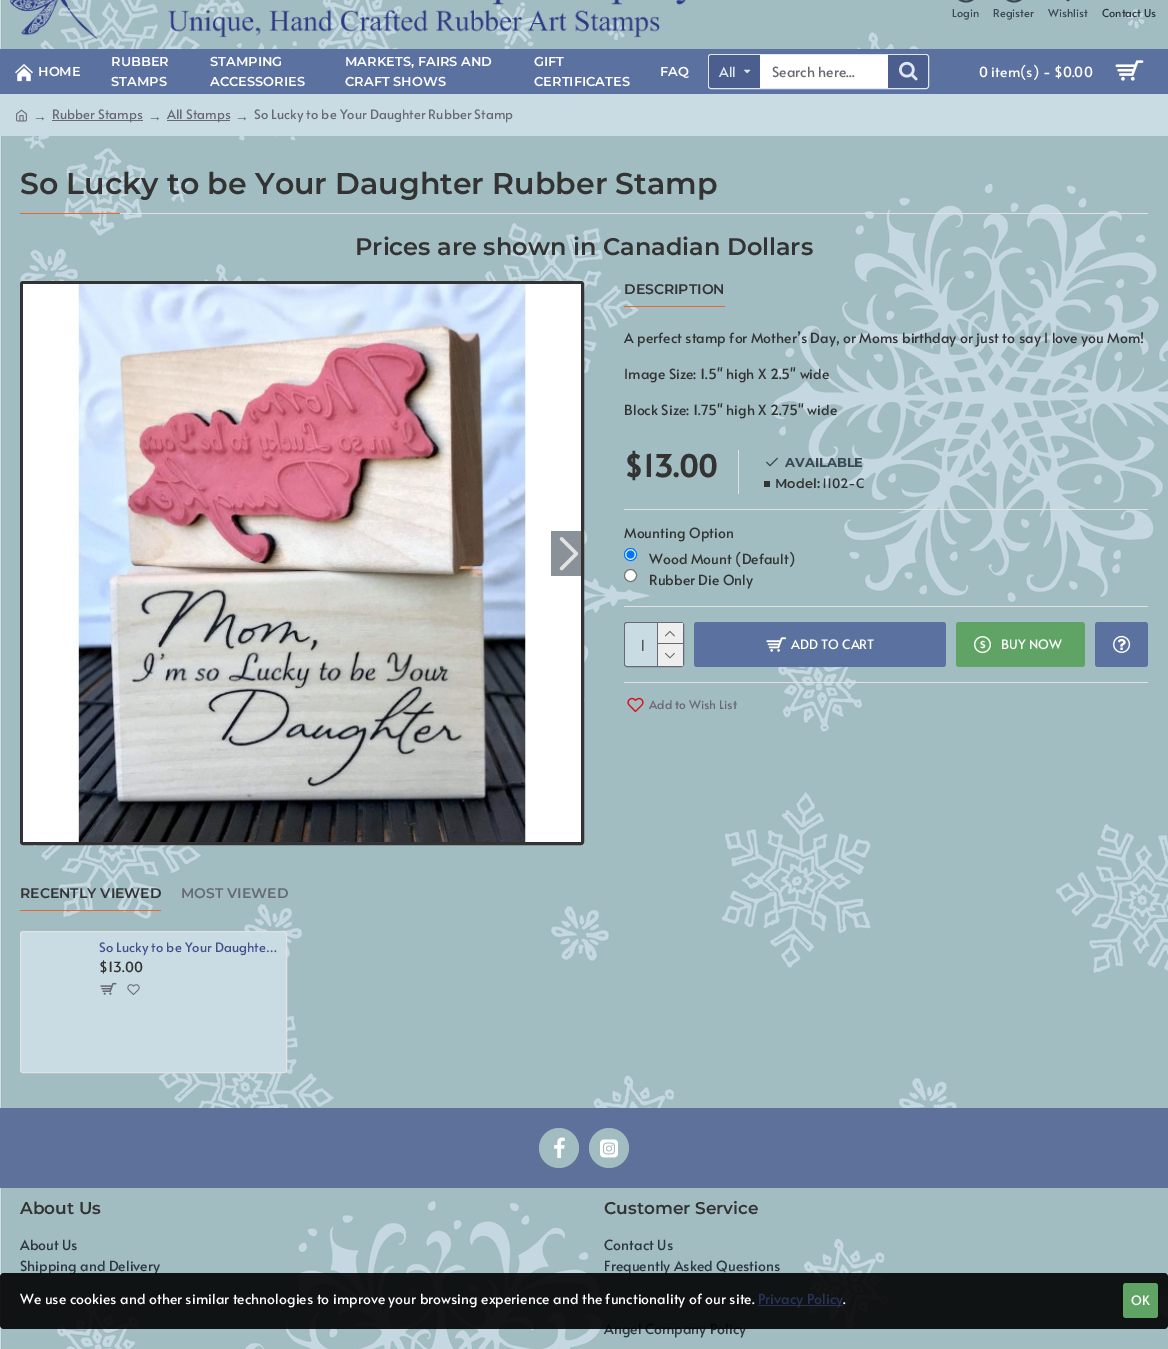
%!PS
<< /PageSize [1168 1349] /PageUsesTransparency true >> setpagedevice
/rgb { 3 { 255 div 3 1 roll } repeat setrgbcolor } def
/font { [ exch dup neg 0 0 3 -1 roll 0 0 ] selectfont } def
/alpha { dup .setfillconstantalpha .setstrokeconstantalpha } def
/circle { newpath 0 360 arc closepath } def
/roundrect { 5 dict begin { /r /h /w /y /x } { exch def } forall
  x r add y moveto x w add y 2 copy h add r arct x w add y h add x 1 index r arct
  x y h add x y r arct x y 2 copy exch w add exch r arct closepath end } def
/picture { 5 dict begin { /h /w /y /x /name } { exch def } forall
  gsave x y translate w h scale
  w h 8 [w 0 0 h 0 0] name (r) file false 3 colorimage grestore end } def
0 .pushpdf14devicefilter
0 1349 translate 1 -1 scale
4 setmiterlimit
255 255 255 rgb
0 0 1168 1349 rectfill
(img/1.rgb) 0 0 1168 1349 picture
(img/2.rgb) 10 0 676 39 picture
(img/3.rgb) 958 0 16 3 picture
(img/4.rgb) 1006 0 16 3 picture
(img/5.rgb) 1066 0 4 2 picture
91 113 159 rgb
0 49 1168 45 rectfill
(img/6.rgb) 15 64 18 18 picture
223 231 246 rgb
708.5 54.5 220 34 2.5 roundrect stroke
75 94 141 rgb
712 55 moveto 760 55 lineto 760 88 lineto 712 88 lineto 710.5 88 709 86.5 709 85 curveto 709 58 lineto 709 56.5 710.5 55 712 55 curveto closepath fill
(img/7.rgb) 744 69 7 5 picture
255 255 255 rgb
760 55 128 33 rectfill
75 94 141 rgb
888 55 moveto 925 55 lineto 926.5 55 928 56.5 928 58 curveto 928 85 lineto 928 86.5 926.5 88 925 88 curveto 888 88 lineto closepath fill
(img/8.rgb) 899 61 19 20 picture
(img/9.rgb) 1115 60 29 21 picture
202 220 227 rgb
0 94 1168 42 rectfill
(img/10.rgb) 16 109 11 13 picture
[
  [52 120 91 1 105 105 115]
  [167 120 63 1 105 105 115]
  [120 213 1028 1 226 226 226]
  [20 213 100 1 233 102 49]
] { aload pop rgb rectfill } forall
51 51 51 rgb
3 setlinewidth
21.5 282.5 561 561 1.5 roundrect stroke
(img/11.rgb) 23 284 558 558 picture
139 145 152 rgb
551 531 30 45 rectfill
(img/12.rgb) 559 537 20 34 picture
233 102 49 rgb
624 306 101 1 rectfill
226 226 226 rgb
738 450 1 44 rectfill
(img/13.rgb) 766 457 12 10 picture
[
  [764 481 6 6 51 51 51]
  [624 509 524 1 226 226 226]
  [624 606 524 1 226 226 226]
] { aload pop rgb rectfill } forall
255 255 255 rgb
630.5 554.5 6 circle gsave fill grestore
0 117 255 rgb
1 setlinewidth
stroke
630.5 554.5 4 circle fill
255 255 255 rgb
630.5 575.5 6 circle gsave fill grestore
118 118 118 rgb
stroke
105 105 115 rgb
624.5 622.5 59 44 2.5 roundrect stroke
202 220 227 rgb
625 623 58 43 3 roundrect fill
[
  [657 623 1 43 105 105 115]
  [658 623 25 20 238 238 238]
  [658 643 25 1 105 105 115]
] { aload pop rgb rectfill } forall
(img/14.rgb) 665 630 10 7 picture
238 238 238 rgb
658 644 25 22 rectfill
(img/15.rgb) 664 652 11 7 picture
91 113 159 rgb
694 622 252 45 3 roundrect fill
(img/16.rgb) 766 637 21 15 picture
95 164 100 rgb
956 622 129 45 3 roundrect fill
(img/17.rgb) 974 636 17 18 picture
91 113 159 rgb
1095 622 53 45 3 roundrect fill
(img/18.rgb) 1113 635 18 18 picture
226 226 226 rgb
624 682 524 1 rectfill
(img/19.rgb) 627 697 17 16 picture
233 102 49 rgb
20 910 141 1 rectfill
202 220 227 rgb
20.5 931.5 266 141 2.5 roundrect gsave fill grestore
226 226 226 rgb
stroke
(img/20.rgb) 100 982 17 13 picture
(img/21.rgb) 127 984 13 12 picture
93 113 155 rgb
0 1108 1168 80 rectfill
162 189 193 rgb
559 1148 20 circle fill
(img/22.rgb) 554 1137 11 21 picture
609 1148 20 circle fill
(img/23.rgb) 600 1139 18 19 picture
/Alata-Regular 11 font
58 71 84 rgb
[
  [(Login) 952 17]
  [(Register) 993 17]
  [(Wishlist) 1048 17]
] { aload pop moveto show } forall
44 54 64 rgb
1102 17 moveto (Contact Us) show
/Montserrat-SemiBold 13 font
255 255 255 rgb
[
  [(HOME) 38 76]
  [(RUBBER) 111 66]
  [(STAMPS) 111 86]
  [(STAMPING) 210 66]
  [(ACCESSORIES) 210 86]
  [(MARKETS, FAIRS AND) 345 66]
  [(CRAFT SHOWS) 345 86]
  [(GIFT) 534 66]
  [(CERTIFICATES) 534 86]
  [(FAQ) 660 76]
] { aload pop moveto show } forall
/Alata-Regular 14 font
223 231 246 rgb
719 77 moveto (All) show
105 105 115 rgb
772 77 moveto (Search here...) show
255 255 255 rgb
979 77 moveto (0 item\(s\) - $0.00) show
/LiberationSerif-Regular 14 font
105 105 115 rgb
33 121 moveto (→) show
/Alata-Regular 13 font
52 119 moveto (Rubber Stamps) show
/LiberationSerif-Regular 14 font
148 121 moveto (→) show
/Alata-Regular 13 font
167 119 moveto (All Stamps) show
/LiberationSerif-Regular 14 font
235 121 moveto (→) show
/Alata-Regular 13 font
254 119 moveto (So Lucky to be Your Daughter Rubber Stamp) show
/Montserrat-SemiBold 30 font
51 51 51 rgb
20 194 moveto (So Lucky to be Your Daughter Rubber Stamp) show
/Montserrat-SemiBold 24 font
355 255 moveto (Prices are shown in Canadian Dollars) show
/Montserrat-SemiBold 14 font
624 294 moveto (DESCRIPTION) show
/Alata-Regular 14 font
[
  [(A perfect stamp for Mother’s Day, or Moms birthday or just to say I love you Mom!) 624 343]
  [(Image Size: 1.5" high X 2.5" wide) 624 379]
  [(Block Size: 1.75" high X 2.75" wide) 624 415]
] { aload pop moveto show } forall
/Alata-Bold 30 font
624 477 moveto ($13.00) show
/Montserrat-Bold 13 font
58 71 84 rgb
785 467 moveto (AVAILABLE) show
/Montserrat-SemiBold 13 font
51 51 51 rgb
775 488 moveto (Model:) show
/Alata-Regular 13 font
822 488 moveto (1102-C) show
/Alata-Regular 14 font
[
  [(Mounting Option) 624 538]
  [(Wood Mount \(Default\)) 649 564]
  [(Rubber Die Only) 649 585]
] { aload pop moveto show } forall
/Alata-Regular 15 font
85 85 85 rgb
640 651 moveto (1) show
/Alata-Regular 13 font
255 255 255 rgb
791 649 moveto (ADD TO CART) show
1001 649 moveto (BUY NOW) show
/Alata-Regular 12 font
105 105 115 rgb
649 709 moveto (Add to Wish List) show
/Montserrat-SemiBold 14 font
51 51 51 rgb
20 898 moveto (RECENTLY VIEWED) show
105 105 115 rgb
181 898 moveto (MOST VIEWED) show
/Alata-Regular 13 font
66 81 139 rgb
99 952 moveto (So Lucky to be Your Daughte…) show
/Alata-Regular 14 font
51 51 51 rgb
99 972 moveto ($13.00) show
/Montserrat-SemiBold 17 font
20 1214 moveto (About Us) show
/Alata-Regular 14 font
44 54 64 rgb
20 1250 moveto (About Us) show
20 1271 moveto (Shipping and Delivery) show
/Montserrat-SemiBold 17 font
51 51 51 rgb
604 1214 moveto (Customer Service) show
/Alata-Regular 14 font
44 54 64 rgb
[
  [(Contact Us) 604 1250]
  [(Frequently Asked Questions) 604 1271]
  [(Angel Company Policy) 604 1334]
] { aload pop moveto show } forall
0.9 alpha
0 0 0 rgb
0 1273 1168 56 4 roundrect fill
1 alpha
255 255 255 rgb
20 1304 moveto (We use cookies and other similar technologies to improve your browsing experience and the functionality of our site.) show
42 50 90 rgb
758 1305 85 1 rectfill
758 1304 moveto (Privacy Policy) show
255 255 255 rgb
843 1304 moveto (.) show
95 164 100 rgb
1123 1283 35 35 3 roundrect fill
/Alata-Regular 13 font
255 255 255 rgb
1131 1305 moveto (OK) show
.poppdf14devicefilter showpage
